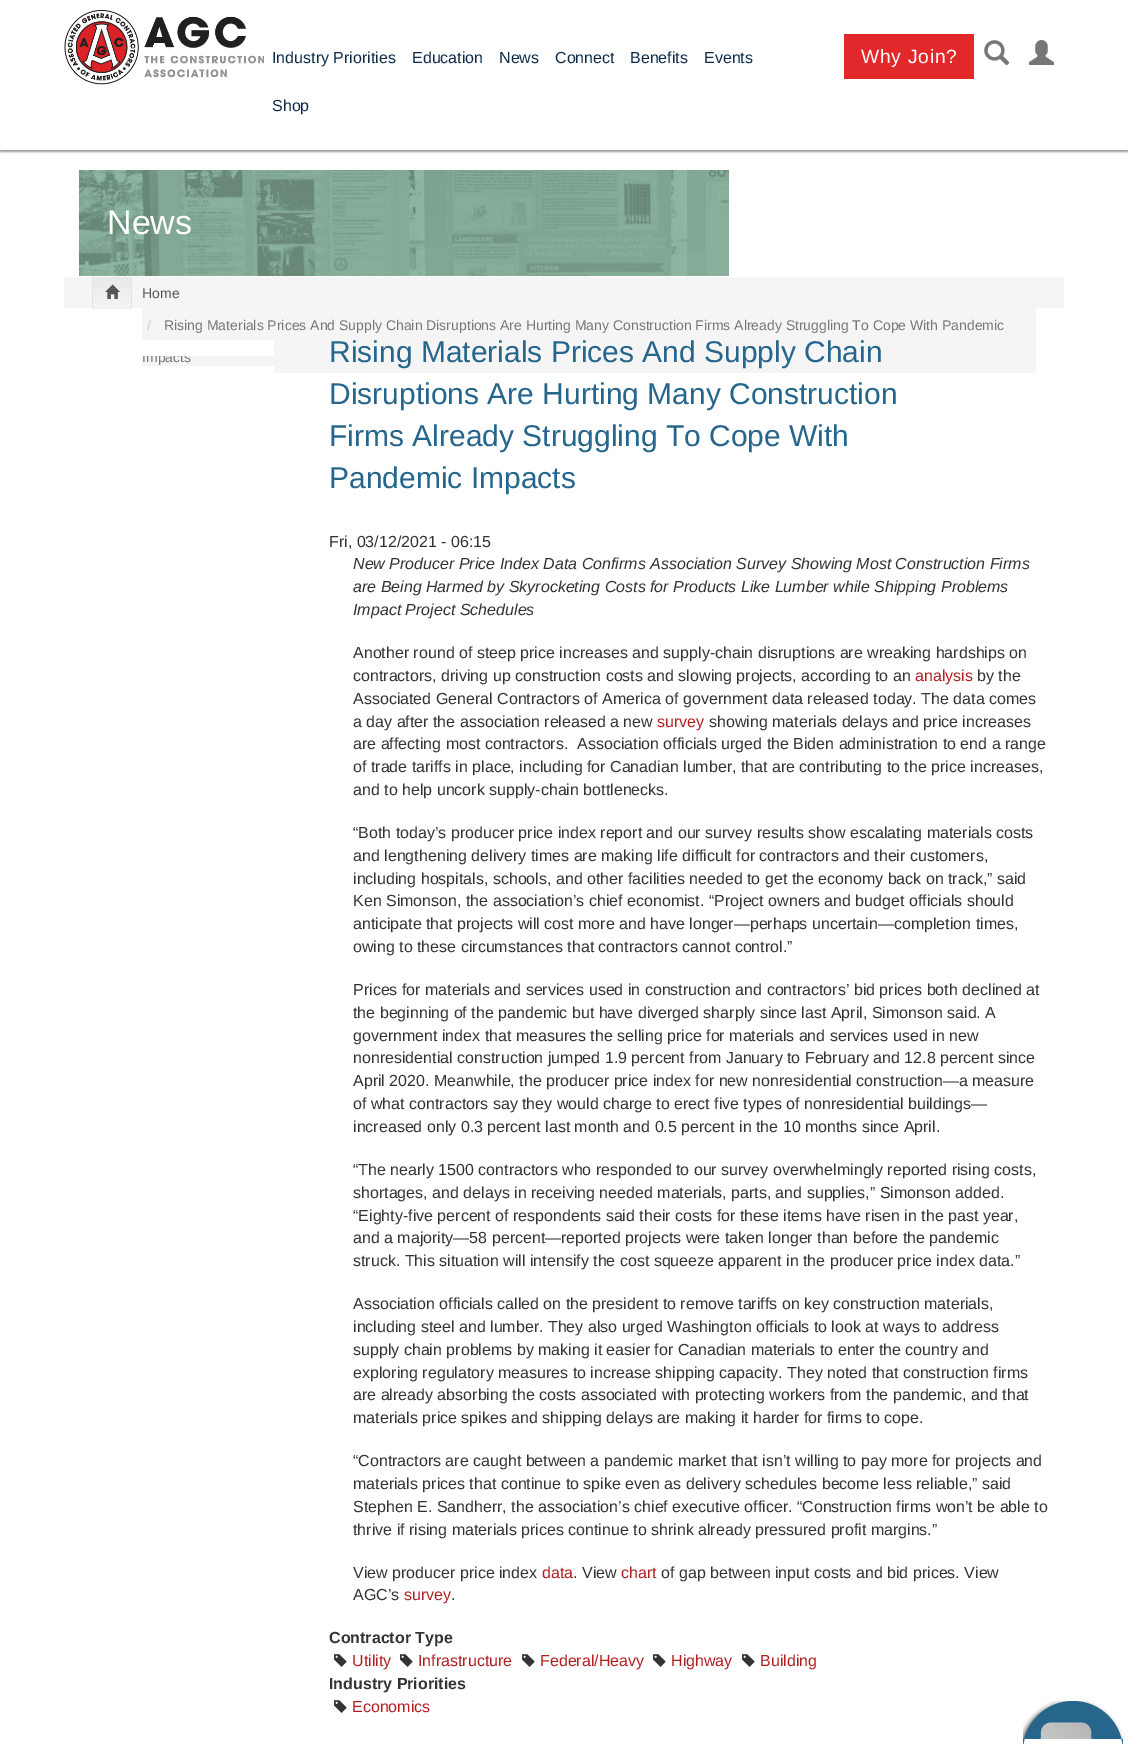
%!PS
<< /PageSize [1128 1744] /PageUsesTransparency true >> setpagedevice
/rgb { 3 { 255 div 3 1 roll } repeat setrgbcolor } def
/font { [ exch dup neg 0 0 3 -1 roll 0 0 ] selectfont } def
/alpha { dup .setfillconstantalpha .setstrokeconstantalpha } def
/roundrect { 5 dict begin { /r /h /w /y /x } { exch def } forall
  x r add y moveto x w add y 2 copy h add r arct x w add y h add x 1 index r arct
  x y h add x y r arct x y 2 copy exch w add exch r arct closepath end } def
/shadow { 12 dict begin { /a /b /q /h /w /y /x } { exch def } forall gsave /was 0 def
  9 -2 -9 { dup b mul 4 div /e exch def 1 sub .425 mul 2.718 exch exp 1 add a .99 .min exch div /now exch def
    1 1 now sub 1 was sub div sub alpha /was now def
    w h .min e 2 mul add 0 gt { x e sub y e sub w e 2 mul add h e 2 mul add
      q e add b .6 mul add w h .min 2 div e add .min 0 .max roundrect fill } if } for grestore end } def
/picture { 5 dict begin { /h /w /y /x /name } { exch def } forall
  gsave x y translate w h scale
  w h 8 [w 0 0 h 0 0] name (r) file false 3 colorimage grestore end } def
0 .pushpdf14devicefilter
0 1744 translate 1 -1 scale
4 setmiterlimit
255 255 255 rgb
0 0 1128 1744 rectfill
gsave
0 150 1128 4 rectclip
153 153 153 rgb
0 11 1128 141 0 1 1 shadow
grestore
(img/1.rgb) 64 10 200 75 picture
226 40 42 rgb
844 34 130 45 rectfill
(img/2.rgb) 984 40 26 26 picture
(img/3.rgb) 1029 40 25 25 picture
(img/4.rgb) 79 170 650 106 picture
245 245 245 rgb
64 277 1000 31 rectfill
gsave 93 277 moveto 131 277 lineto 131 309 lineto 93 309 lineto closepath clip newpath
<< /ShadingType 2 /ColorSpace /DeviceRGB /Coords [112 277 112 309] /Extend [true true] /Function << /FunctionType 2 /Domain [0 1] /C0 [0.914 0.914 0.914] /C1 [0.961 0.961 0.961] /N 1 >> >> shfill grestore
226 226 226 rgb
131 277 1 32 rectfill
92 277 1 32 rectfill
(img/5.rgb) 105 284 15 15 picture
245 245 245 rgb
142 277 894 96 4 roundrect fill
255 255 255 rgb
142 366 132 7 rectfill
(img/6.rgb) 334 1654 13 13 picture
(img/6.rgb) 400 1654 13 13 picture
(img/6.rgb) 522 1654 13 13 picture
(img/6.rgb) 653 1654 13 13 picture
(img/6.rgb) 742 1654 13 13 picture
(img/6.rgb) 334 1700 13 13 picture
gsave
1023 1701 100 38 rectclip
51 51 51 rgb
1021 1703 100 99 50 2.5 1 shadow
grestore
38 102 140 rgb
1073 1701 moveto 1100.5 1701 1123 1723.5 1123 1751 curveto 1123 1739 lineto 1023 1739 lineto 1023 1751 lineto 1023 1723.5 1045.5 1701 1073 1701 curveto closepath fill
(img/7.rgb) 1040 1722 52 17 picture
/LiberationSans-Regular 16 font
14 43 74 rgb
[
  [(Industry Priorities) 272 63]
  [(Education) 412 63]
  [(News) 499 63]
  [(Connect) 555 63]
  [(Benefits) 630 63]
  [(Events) 704 63]
  [(Shop) 272 111]
] { aload pop moveto show } forall
/LiberationSans-Regular 19.25 font
255 255 255 rgb
861 63 moveto 0.75 0 (Why Join?) ashow
/LiberationSans-Regular 34 font
107 234 moveto (News) show
/LiberationSans-Regular 14 font
85 85 85 rgb
142 298 moveto (Home) show
204 204 204 rgb
147 330 moveto (/) show
119 119 119 rgb
164 330 moveto (Rising Materials Prices And Supply Chain Disruptions Are Hurting Many Construction Firms Already Struggling To Cope With Pandemic) show
142 362 moveto (Impacts) show
255 255 255 rgb
142 340 132 16 rectfill
/LiberationSans-Regular 30 font
38 102 140 rgb
[
  [(Rising Materials Prices And Supply Chain) 329 362]
  [(Disruptions Are Hurting Many Construction) 329 404]
  [(Firms Already Struggling To Cope With) 329 446]
  [(Pandemic Impacts) 329 488]
] { aload pop moveto show } forall
/LiberationSans-Regular 16 font
51 51 51 rgb
329 547 moveto (Fri, 03/12/2021 - 06:15) show
/LiberationSans-Italic 16 font
[
  [(New Producer Price Index Data Confirms Association Survey Showing Most Construction Firms) 353 569]
  [(are Being Harmed by Skyrocketing Costs for Products Like Lumber while Shipping Problems) 353 592]
  [(Impact Project Schedules) 353 615]
] { aload pop moveto show } forall
/LiberationSans-Regular 16 font
353 658 moveto (Another round of steep price increases and supply-chain disruptions are wreaking hardships on) show
353 681 moveto (contractors, driving up construction costs and slowing projects, according to an) show
177 31 33 rgb
915 681 moveto (analysis) show
51 51 51 rgb
[
  [(by the) 977 681]
  [(Associated General Contractors of America of government data released today. The data comes) 353 704]
  [(a day after the association released a new) 353 727]
] { aload pop moveto show } forall
177 31 33 rgb
657 727 moveto (survey) show
51 51 51 rgb
[
  [(showing materials delays and price increases) 709 727]
  [(are affecting most contractors.  Association officials urged the Biden administration to end a range) 353 749]
  [(of trade tariffs in place, including for Canadian lumber, that are contributing to the price increases,) 353 772]
  [(and to help uncork supply-chain bottlenecks.) 353 795]
  [(“Both today’s producer price index report and our survey results show escalating materials costs) 353 838]
  [(and lengthening delivery times are making life difficult for contractors and their customers,) 353 861]
  [(including hospitals, schools, and other facilities needed to get the economy back on track,” said) 353 884]
  [(Ken Simonson, the association’s chief economist. “Project owners and budget officials should) 353 906]
  [(anticipate that projects will cost more and have longer—perhaps uncertain—completion times,) 353 929]
  [(owing to these circumstances that contractors cannot control.”) 353 952]
  [(Prices for materials and services used in construction and contractors’ bid prices both declined at) 353 995]
  [(the beginning of the pandemic but have diverged sharply since last April, Simonson said. A) 353 1018]
  [(government index that measures the selling price for materials and services used in new) 353 1041]
  [(nonresidential construction jumped 1.9 percent from January to February and 12.8 percent since) 353 1063]
  [(April 2020. Meanwhile, the producer price index for new nonresidential construction—a measure) 353 1086]
  [(of what contractors say they would charge to erect five types of nonresidential buildings—) 353 1109]
  [(increased only 0.3 percent last month and 0.5 percent in the 10 months since April.) 353 1132]
  [(“The nearly 1500 contractors who responded to our survey overwhelmingly reported rising costs,) 353 1175]
  [(shortages, and delays in receiving needed materials, parts, and supplies,” Simonson added.) 353 1198]
  [(“Eighty-five percent of respondents said their costs for these items have risen in the past year,) 353 1221]
  [(and a majority—58 percent—reported projects were taken longer than before the pandemic) 353 1243]
  [(struck. This situation will intensify the cost squeeze apparent in the producer price index data.”) 353 1266]
  [(Association officials called on the president to remove tariffs on key construction materials,) 353 1309]
  [(including steel and lumber. They also urged Washington officials to look at ways to address) 353 1332]
  [(supply chain problems by making it easier for Canadian materials to enter the country and) 353 1355]
  [(exploring regulatory measures to increase shipping capacity. They noted that construction firms) 353 1378]
  [(are already absorbing the costs associated with protecting workers from the pandemic, and that) 353 1400]
  [(materials price spikes and shipping delays are making it harder for firms to cope.) 353 1423]
  [(“Contractors are caught between a pandemic market that isn’t willing to pay more for projects and) 353 1466]
  [(materials prices that continue to spike even as delivery schedules become less reliable,” said) 353 1489]
  [(Stephen E. Sandherr, the association’s chief executive officer. “Construction firms won’t be able to) 353 1512]
  [(thrive if rising materials prices continue to shrink already pressured profit margins.”) 353 1535]
  [(View producer price index) 353 1578]
] { aload pop moveto show } forall
177 31 33 rgb
542 1578 moveto (data) show
51 51 51 rgb
573 1578 moveto (. View) show
177 31 33 rgb
621 1578 moveto (chart) show
51 51 51 rgb
661 1578 moveto (of gap between input costs and bid prices. View) show
353 1600 moveto (AGC’s) show
177 31 33 rgb
404 1600 moveto (survey) show
51 51 51 rgb
451 1600 moveto (.) show
/LiberationSans-Bold 16 font
329 1643 moveto (Contractor Type) show
/LiberationSans-Regular 16 font
177 31 33 rgb
[
  [(Utility) 352 1666]
  [(Infrastructure) 418 1666]
  [(Federal/Heavy) 540 1666]
  [(Highway) 671 1666]
  [(Building) 760 1666]
] { aload pop moveto show } forall
/LiberationSans-Bold 16 font
51 51 51 rgb
329 1689 moveto (Industry Priorities) show
/LiberationSans-Regular 16 font
177 31 33 rgb
352 1712 moveto (Economics) show
.poppdf14devicefilter showpage
